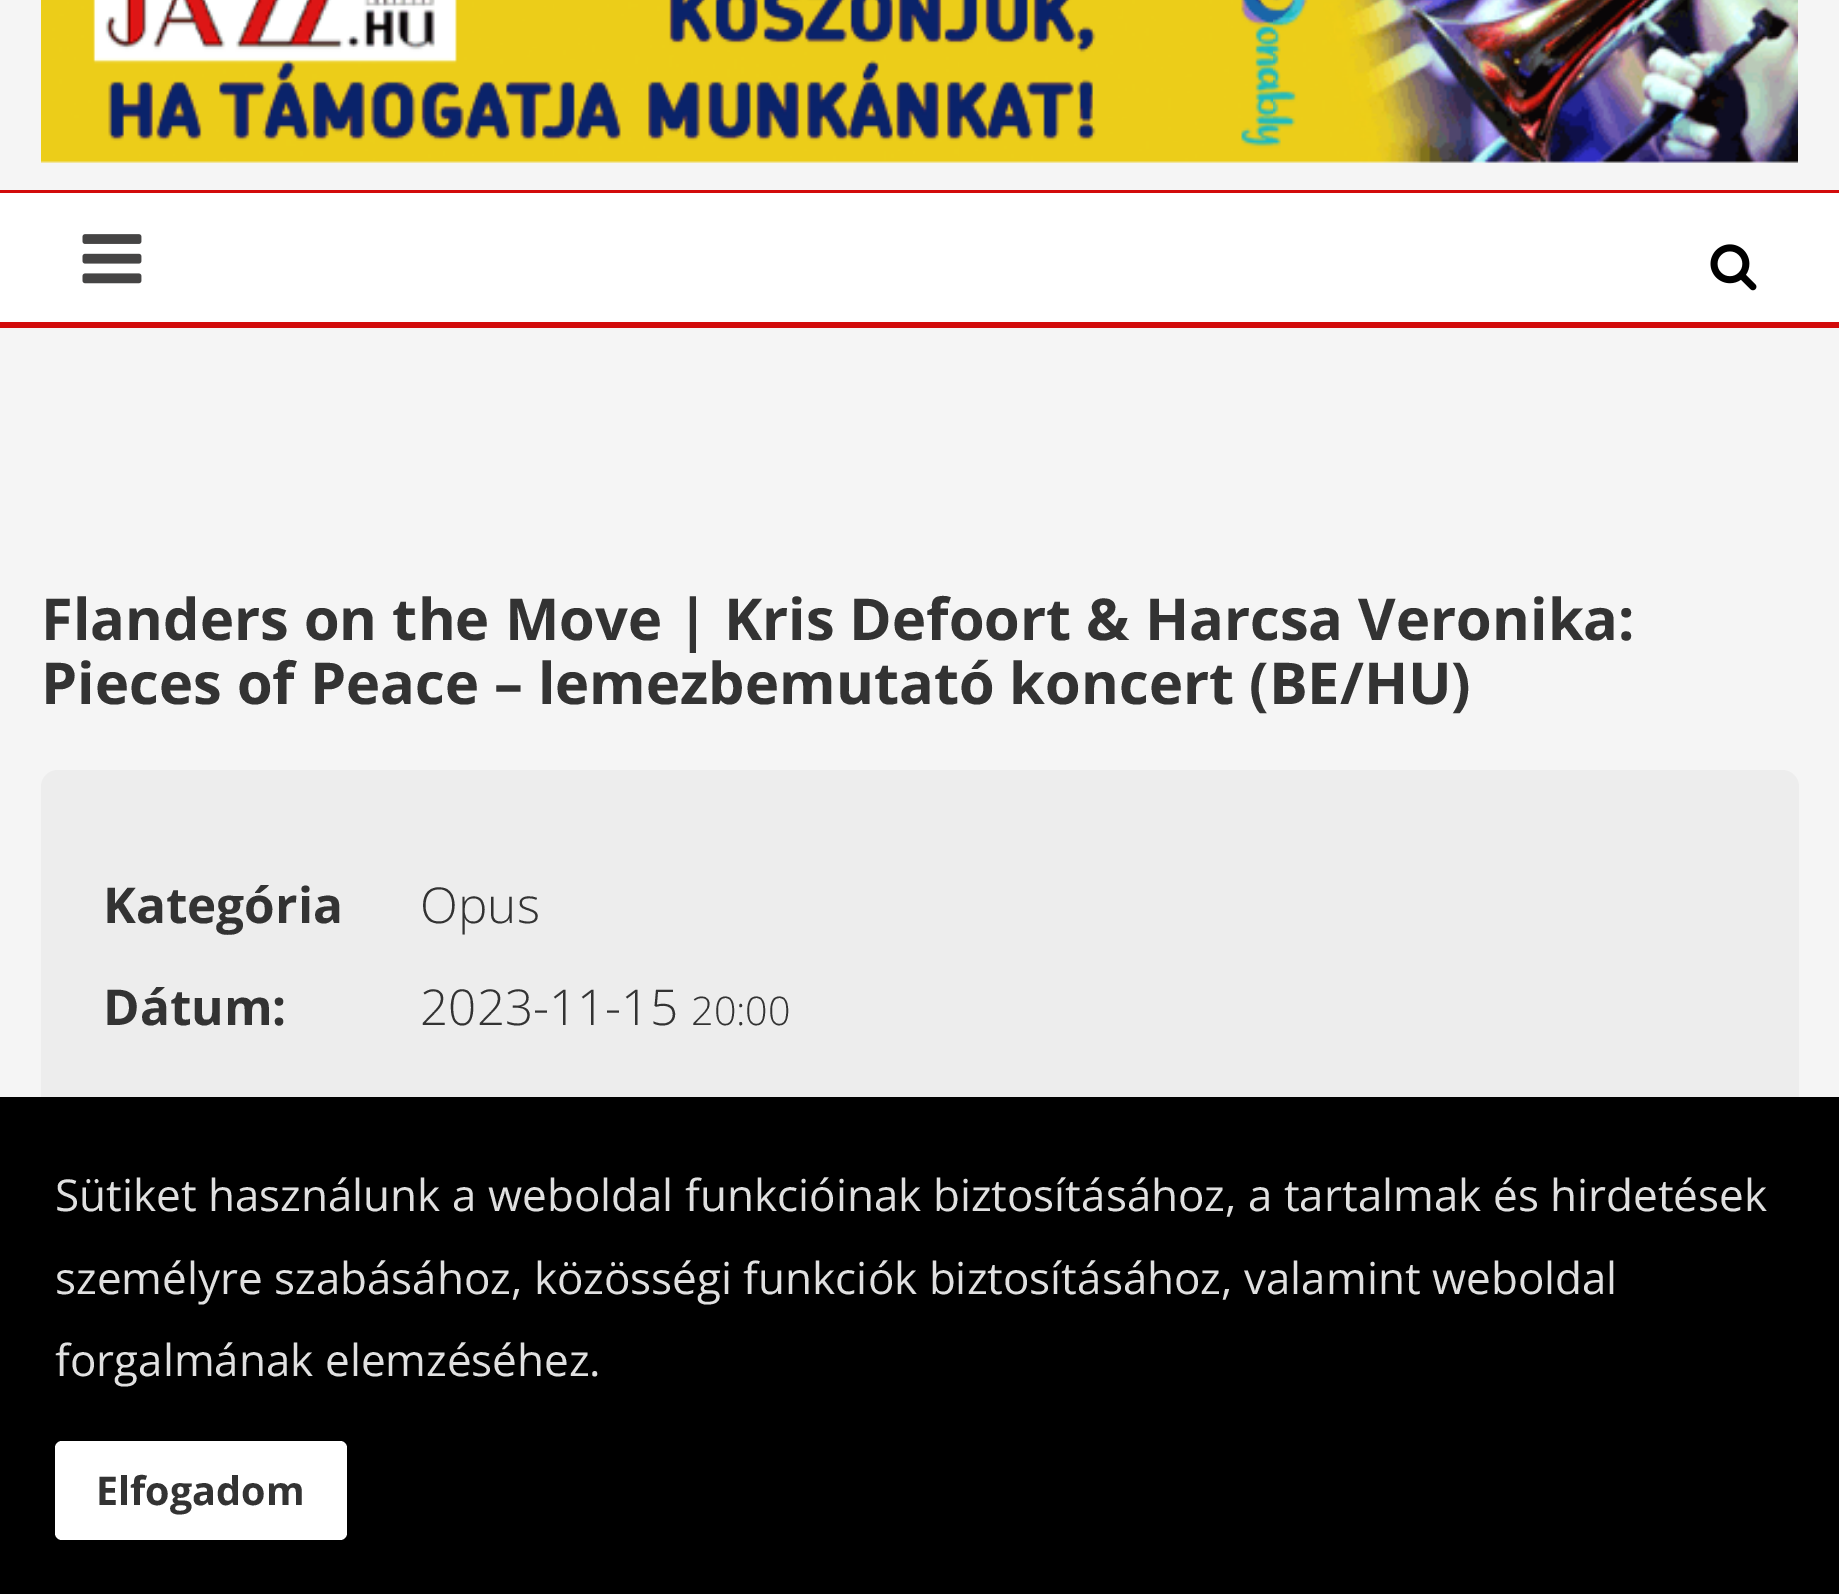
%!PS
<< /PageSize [1839 1594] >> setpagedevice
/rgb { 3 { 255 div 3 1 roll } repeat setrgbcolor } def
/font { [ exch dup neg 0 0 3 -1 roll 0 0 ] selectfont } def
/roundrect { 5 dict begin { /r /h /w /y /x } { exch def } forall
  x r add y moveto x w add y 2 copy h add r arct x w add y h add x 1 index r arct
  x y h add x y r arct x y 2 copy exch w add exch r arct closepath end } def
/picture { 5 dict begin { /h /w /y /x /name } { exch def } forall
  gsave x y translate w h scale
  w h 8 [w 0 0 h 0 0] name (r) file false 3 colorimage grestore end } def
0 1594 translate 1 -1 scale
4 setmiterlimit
245 245 245 rgb
0 0 1839 1594 rectfill
(img/1.rgb) 41 0 1757 163 picture
[
  [0 193 1839 129 255 255 255]
  [0 190 1839 3 210 11 11]
  [0 322 1839 6 210 11 11]
] { aload pop rgb rectfill } forall
(img/2.rgb) 82 234 60 50 picture
(img/3.rgb) 1710 244 47 47 picture
237 237 237 rgb
41 770 1758 641 17 roundrect fill
0 0 0 rgb
0 1097 1839 497 rectfill
255 255 255 rgb
55 1441 292 99 7 roundrect fill
/OpenSans-Bold 57.75 font
51 51 51 rgb
41 640 moveto (Flanders on the Move | Kris Defoort & Harcsa Veronika:) show
41 704 moveto (Pieces of Peace – lemezbemutató koncert \(BE/HU\)) show
/OpenSans-Bold 49.5 font
103 923 moveto (Kategória) show
/OpenSans-Light 49.5 font
420 923 moveto (Opus) show
/OpenSans-Bold 49.5 font
103 1025 moveto (Dátum:) show
/OpenSans-Light 49.5 font
420 1025 moveto (2023-11-15) show
/OpenSans-Light 39.5 font
691 1025 moveto (20:00) show
/OpenSans-Regular 44 font
224 224 224 rgb
[
  [(Sütiket használunk a weboldal funkcióinak biztosításához, a tartalmak és hirdetések) 55 1211]
  [(személyre szabásához, közösségi funkciók biztosításához, valamint weboldal) 55 1294]
  [(forgalmának elemzéséhez.) 55 1376]
] { aload pop moveto show } forall
/OpenSans-Bold 39.5 font
51 51 51 rgb
96 1505 moveto (Elfogadom) show
showpage
